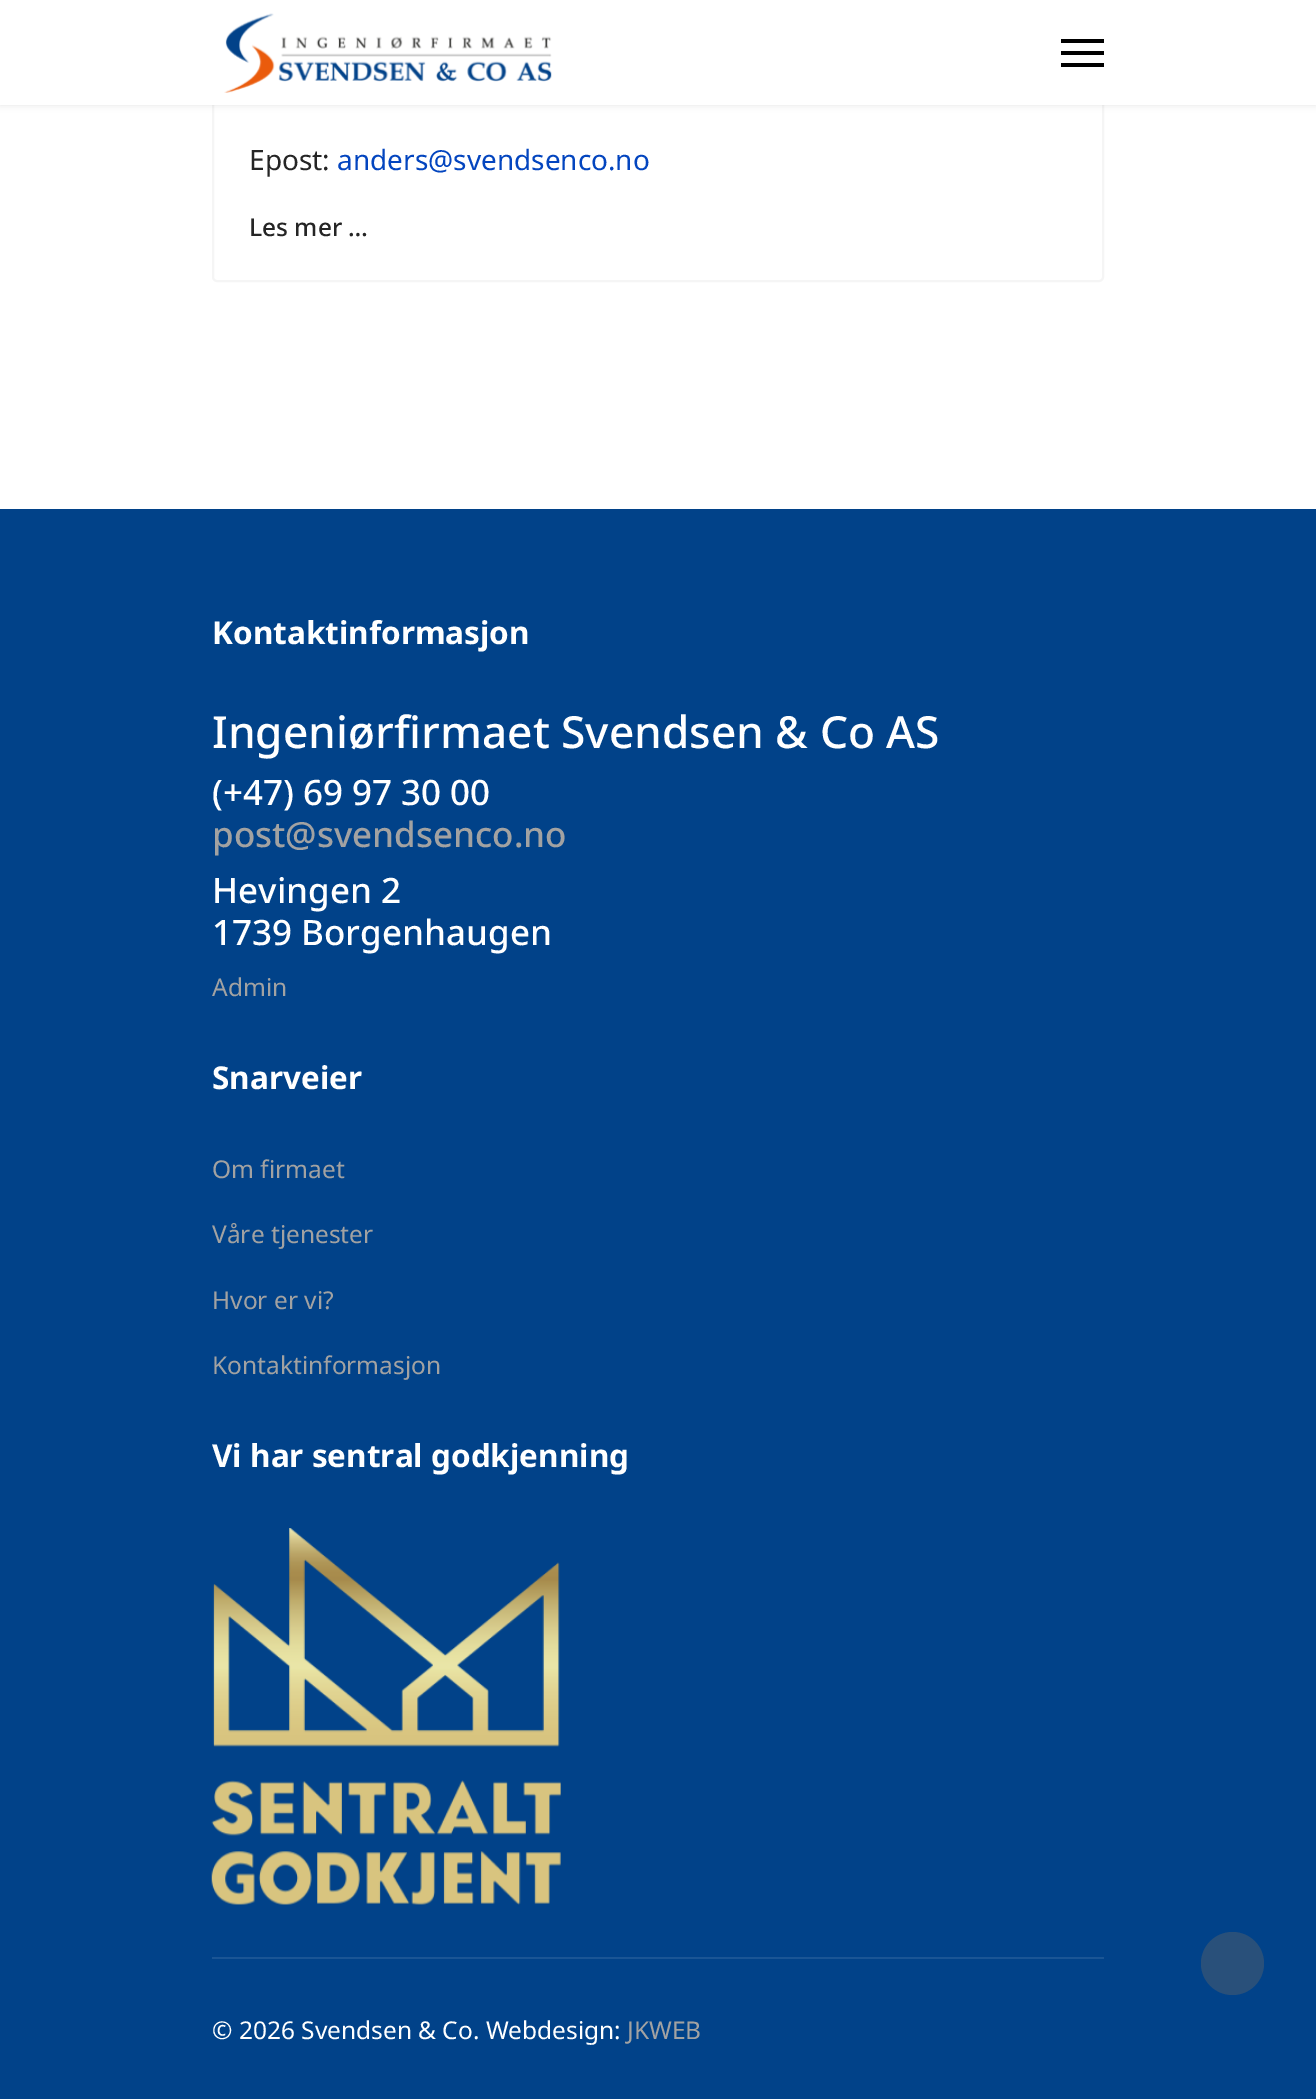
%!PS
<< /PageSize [1316 2099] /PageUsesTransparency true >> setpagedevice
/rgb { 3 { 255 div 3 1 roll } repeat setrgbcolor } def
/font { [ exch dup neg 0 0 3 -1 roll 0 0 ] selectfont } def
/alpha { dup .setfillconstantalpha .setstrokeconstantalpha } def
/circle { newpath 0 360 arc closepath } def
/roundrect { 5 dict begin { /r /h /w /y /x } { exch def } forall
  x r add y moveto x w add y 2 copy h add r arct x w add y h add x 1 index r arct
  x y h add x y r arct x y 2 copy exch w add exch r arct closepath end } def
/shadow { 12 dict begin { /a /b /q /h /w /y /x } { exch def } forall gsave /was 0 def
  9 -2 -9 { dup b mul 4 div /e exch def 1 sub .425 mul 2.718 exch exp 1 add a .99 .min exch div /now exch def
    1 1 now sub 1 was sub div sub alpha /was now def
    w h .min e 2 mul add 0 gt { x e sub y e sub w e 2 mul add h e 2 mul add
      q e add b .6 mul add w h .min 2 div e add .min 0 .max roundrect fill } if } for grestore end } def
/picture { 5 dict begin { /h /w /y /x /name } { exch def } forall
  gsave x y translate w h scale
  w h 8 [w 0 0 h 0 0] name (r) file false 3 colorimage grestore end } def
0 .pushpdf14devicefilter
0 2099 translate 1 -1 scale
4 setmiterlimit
255 255 255 rgb
0 0 1316 2099 rectfill
245 245 245 rgb
2 setlinewidth
213 -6 890 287 4 roundrect stroke
0 0 0 rgb
0 0 1316 105 0 3.5 0.1 shadow
255 255 255 rgb
0 0 1316 105 rectfill
(img/1.rgb) 224 13 328 80 picture
[
  [1061 39 43 4 0 0 0]
  [1061 51 43 4 0 0 0]
  [1061 63 43 4 0 0 0]
  [0 509 1316 1590 1 66 137]
] { aload pop rgb rectfill } forall
(img/2.rgb) 211 1528 350 377 picture
26 85 149 rgb
212 1957 892 2 rectfill
41 80 122 rgb
1232.5 1963.5 31.5 circle fill
/NotoSans-Regular 28 font
37 37 37 rgb
249 170 moveto (Epost:) show
3 69 191 rgb
337 170 moveto (anders@svendsenco.no) show
/NotoSans-Medium 24.5 font
37 37 37 rgb
249 236 moveto (Les mer …) show
/NotoSans-Bold 31.5 font
255 255 255 rgb
212 644 moveto (Kontaktinformasjon) show
/NotoSans-Medium 44.25 font
212 748 moveto (Ingeniørfirmaet Svendsen & Co AS) show
/NotoSans-Medium 35 font
212 805 moveto (\(+47\) 69 97 30 00) show
162 162 162 rgb
212 847 moveto (post@svendsenco.no) show
255 255 255 rgb
212 903 moveto (Hevingen 2) show
212 945 moveto (1739 Borgenhaugen) show
/NotoSans-Regular 24.5 font
162 162 162 rgb
212 996 moveto (Admin) show
/NotoSans-Bold 31.5 font
255 255 255 rgb
212 1089 moveto (Snarveier) show
/NotoSans-Regular 24.5 font
162 162 162 rgb
[
  [(Om firmaet) 212 1178]
  [(Våre tjenester) 212 1243]
  [(Hvor er vi?) 212 1309]
  [(Kontaktinformasjon) 212 1374]
] { aload pop moveto show } forall
/NotoSans-Bold 31.5 font
255 255 255 rgb
212 1467 moveto (Vi har sentral godkjenning) show
/NotoSans-Regular 24.5 font
212 2039 moveto (© 2026 Svendsen & Co. Webdesign:) show
162 162 162 rgb
627 2039 moveto (JKWEB) show
.poppdf14devicefilter showpage
